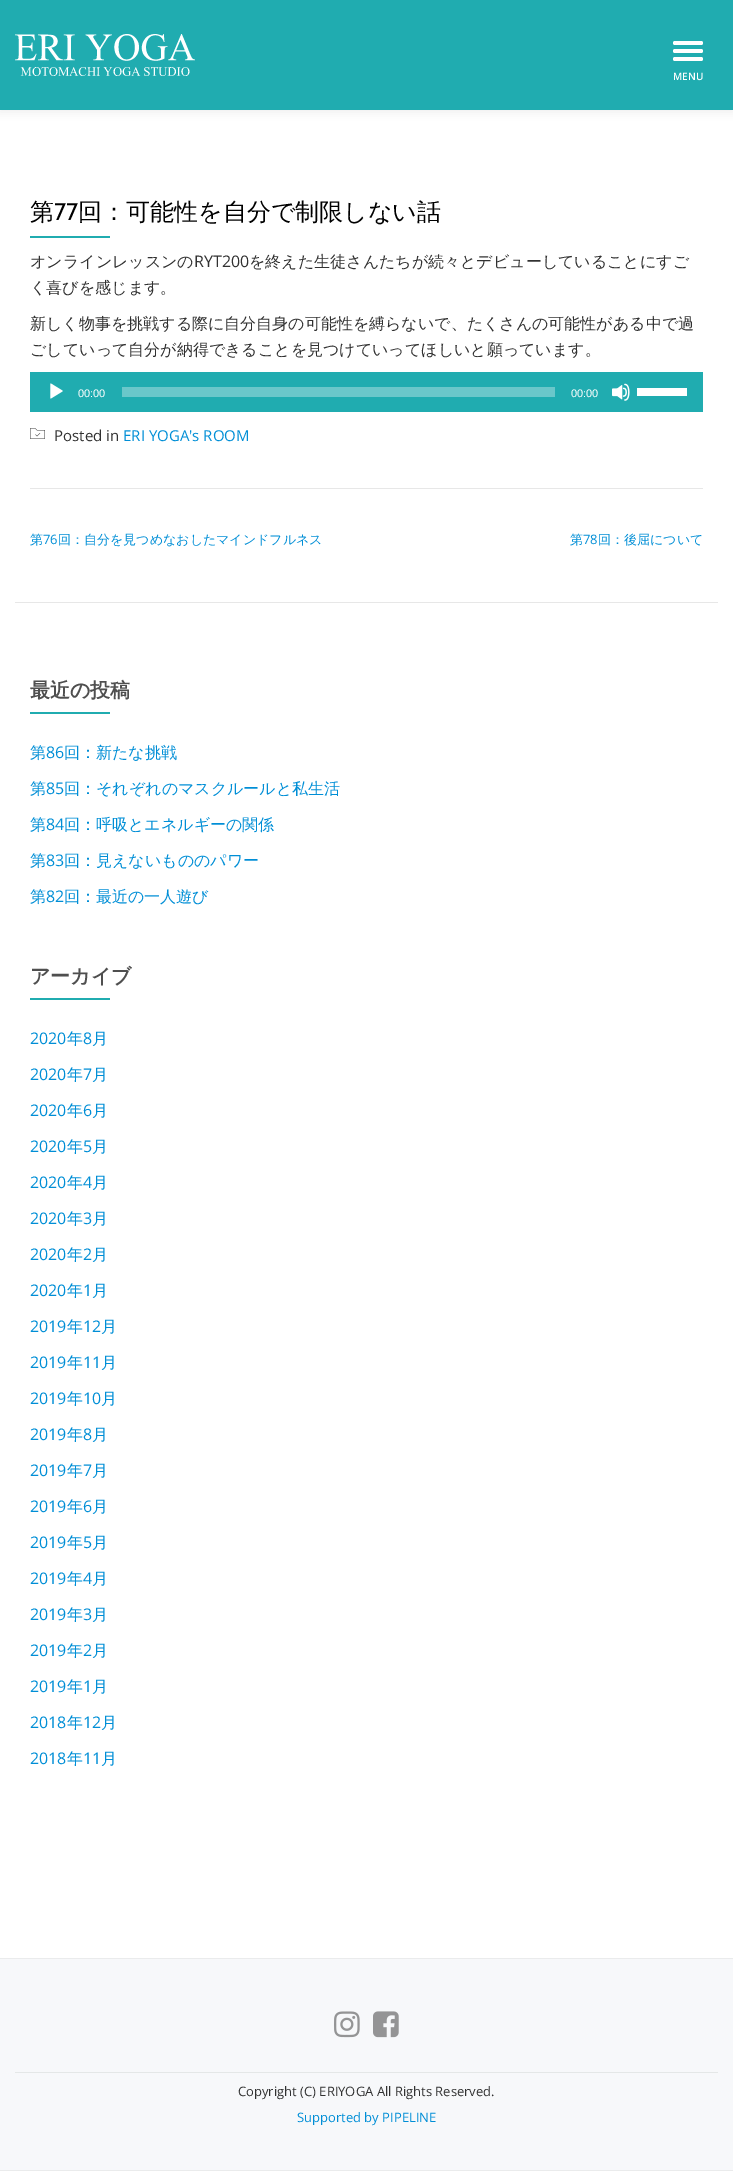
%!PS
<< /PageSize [733 2171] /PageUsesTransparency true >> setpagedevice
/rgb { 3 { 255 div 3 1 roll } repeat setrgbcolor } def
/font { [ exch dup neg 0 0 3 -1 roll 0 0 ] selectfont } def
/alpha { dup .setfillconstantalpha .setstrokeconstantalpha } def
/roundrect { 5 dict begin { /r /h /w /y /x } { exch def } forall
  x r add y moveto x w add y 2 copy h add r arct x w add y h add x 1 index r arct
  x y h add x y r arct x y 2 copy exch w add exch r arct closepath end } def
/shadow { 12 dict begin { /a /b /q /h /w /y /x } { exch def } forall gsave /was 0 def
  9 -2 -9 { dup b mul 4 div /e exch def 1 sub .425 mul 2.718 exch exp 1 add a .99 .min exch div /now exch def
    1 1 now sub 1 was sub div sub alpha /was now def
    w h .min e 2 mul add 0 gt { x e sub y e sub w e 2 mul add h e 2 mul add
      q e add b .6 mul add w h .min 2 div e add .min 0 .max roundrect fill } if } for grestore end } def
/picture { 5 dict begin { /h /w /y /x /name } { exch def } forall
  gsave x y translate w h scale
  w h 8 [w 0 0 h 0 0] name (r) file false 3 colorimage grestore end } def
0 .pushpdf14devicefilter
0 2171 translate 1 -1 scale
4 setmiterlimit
255 255 255 rgb
0 0 733 2171 rectfill
50 50 50 rgb
0 2 733 110 0 4 0.08 shadow
32 172 176 rgb
0 0 733 110 rectfill
(img/1.rgb) 15 34 180 42 picture
255 255 255 rgb
673 41 30 4 2 roundrect fill
673 49 30 4 2 roundrect fill
673 57 30 4 2 roundrect fill
32 172 176 rgb
30 236 80 2 rectfill
30 372 673 40 rectfill
(img/2.rgb) 50 383 13 16 picture
106 199 202 rgb
122 387 433 10 rectfill
(img/3.rgb) 612 383 18 18 picture
255 255 255 rgb
637 388 50 8 rectfill
(img/4.rgb) 30 428 15 11 picture
[
  [30 488 673 1 231 231 231]
  [15 602 703 1 231 231 231]
  [30 712 80 2 32 172 176]
  [30 998 80 2 32 172 176]
  [0 1959 733 211 247 248 250]
  [0 1958 733 1 234 235 236]
  [0 2170 733 1 234 235 236]
] { aload pop rgb rectfill } forall
(img/5.rgb) 334 2011 26 27 picture
(img/6.rgb) 373 2011 26 27 picture
228 231 231 rgb
15 2072 703 1 rectfill
/OpenSans-SemiBold 10 font
255 255 255 rgb
673 80 moveto (MENU) show
/WenQuanYiZenHei-Medium 24 font
0 0 0 rgb
30 220 moveto (第) show
/Cabin-Regular 24 font
54 220 moveto (77) show
/WenQuanYiZenHei-Medium 24 font
78 220 moveto (回：可能性を自分で制限しない話) show
/WenQuanYiZenHei-Medium 16 font
49 49 49 rgb
30 267 moveto (オンラインレッスンの) show
/OpenSans-Regular 16 font
194 267 moveto (RYT200) show
/WenQuanYiZenHei-Medium 16 font
[
  [(を終えた生徒さんたちが続々とデビューしていることにすご) 249 267]
  [(く喜びを感じます。) 30 293]
  [(新しく物事を挑戦する際に自分自身の可能性を縛らないで、たくさんの可能性がある中で過) 30 329]
  [(ごしていって自分が納得できることを見つけていってほしいと願っています。) 30 355]
] { aload pop moveto show } forall
/LiberationSans-Regular 11 font
255 255 255 rgb
78 397 moveto (00:00) show
571 397 moveto (00:00) show
/OpenSans-Regular 15 font
49 49 49 rgb
54 441 moveto (Posted in) show
0 142 214 rgb
123 441 moveto (ERI YOGA's ROOM) show
/WenQuanYiZenHei-Medium 13 font
30 544 moveto (第) show
/OpenSans-Regular 13 font
43 544 moveto (76) show
/WenQuanYiZenHei-Medium 13 font
58 544 moveto (回：自分を見つめなおしたマインドフルネス) show
570 544 moveto (第) show
/OpenSans-Regular 13 font
583 544 moveto (78) show
/WenQuanYiZenHei-Medium 13 font
598 544 moveto (回：後屈について) show
/WenQuanYiZenHei-Bold 20 font
79 79 79 rgb
30 697 moveto (最近の投稿) show
/WenQuanYiZenHei-Medium 16 font
0 142 214 rgb
30 758 moveto (第) show
/OpenSans-Regular 16 font
46 758 moveto (86) show
/WenQuanYiZenHei-Medium 16 font
64 758 moveto (回：新たな挑戦) show
30 794 moveto (第) show
/OpenSans-Regular 16 font
46 794 moveto (85) show
/WenQuanYiZenHei-Medium 16 font
64 794 moveto (回：それぞれのマスクルールと私生活) show
30 830 moveto (第) show
/OpenSans-Regular 16 font
46 830 moveto (84) show
/WenQuanYiZenHei-Medium 16 font
64 830 moveto (回：呼吸とエネルギーの関係) show
30 866 moveto (第) show
/OpenSans-Regular 16 font
46 866 moveto (83) show
/WenQuanYiZenHei-Medium 16 font
64 866 moveto (回：見えないもののパワー) show
30 902 moveto (第) show
/OpenSans-Regular 16 font
46 902 moveto (82) show
/WenQuanYiZenHei-Medium 16 font
64 902 moveto (回：最近の一人遊び) show
/WenQuanYiZenHei-Bold 20 font
79 79 79 rgb
30 983 moveto (アーカイブ) show
/OpenSans-Regular 16 font
0 142 214 rgb
30 1044 moveto (2020) show
/WenQuanYiZenHei-Medium 16 font
67 1044 moveto (年) show
/OpenSans-Regular 16 font
83 1044 moveto (8) show
/WenQuanYiZenHei-Medium 16 font
92 1044 moveto (月) show
/OpenSans-Regular 16 font
30 1080 moveto (2020) show
/WenQuanYiZenHei-Medium 16 font
67 1080 moveto (年) show
/OpenSans-Regular 16 font
83 1080 moveto (7) show
/WenQuanYiZenHei-Medium 16 font
92 1080 moveto (月) show
/OpenSans-Regular 16 font
30 1116 moveto (2020) show
/WenQuanYiZenHei-Medium 16 font
67 1116 moveto (年) show
/OpenSans-Regular 16 font
83 1116 moveto (6) show
/WenQuanYiZenHei-Medium 16 font
92 1116 moveto (月) show
/OpenSans-Regular 16 font
30 1152 moveto (2020) show
/WenQuanYiZenHei-Medium 16 font
67 1152 moveto (年) show
/OpenSans-Regular 16 font
83 1152 moveto (5) show
/WenQuanYiZenHei-Medium 16 font
92 1152 moveto (月) show
/OpenSans-Regular 16 font
30 1188 moveto (2020) show
/WenQuanYiZenHei-Medium 16 font
67 1188 moveto (年) show
/OpenSans-Regular 16 font
83 1188 moveto (4) show
/WenQuanYiZenHei-Medium 16 font
92 1188 moveto (月) show
/OpenSans-Regular 16 font
30 1224 moveto (2020) show
/WenQuanYiZenHei-Medium 16 font
67 1224 moveto (年) show
/OpenSans-Regular 16 font
83 1224 moveto (3) show
/WenQuanYiZenHei-Medium 16 font
92 1224 moveto (月) show
/OpenSans-Regular 16 font
30 1260 moveto (2020) show
/WenQuanYiZenHei-Medium 16 font
67 1260 moveto (年) show
/OpenSans-Regular 16 font
83 1260 moveto (2) show
/WenQuanYiZenHei-Medium 16 font
92 1260 moveto (月) show
/OpenSans-Regular 16 font
30 1296 moveto (2020) show
/WenQuanYiZenHei-Medium 16 font
67 1296 moveto (年) show
/OpenSans-Regular 16 font
83 1296 moveto (1) show
/WenQuanYiZenHei-Medium 16 font
92 1296 moveto (月) show
/OpenSans-Regular 16 font
30 1332 moveto (2019) show
/WenQuanYiZenHei-Medium 16 font
67 1332 moveto (年) show
/OpenSans-Regular 16 font
83 1332 moveto (12) show
/WenQuanYiZenHei-Medium 16 font
101 1332 moveto (月) show
/OpenSans-Regular 16 font
30 1368 moveto (2019) show
/WenQuanYiZenHei-Medium 16 font
67 1368 moveto (年) show
/OpenSans-Regular 16 font
83 1368 moveto (11) show
/WenQuanYiZenHei-Medium 16 font
101 1368 moveto (月) show
/OpenSans-Regular 16 font
30 1404 moveto (2019) show
/WenQuanYiZenHei-Medium 16 font
67 1404 moveto (年) show
/OpenSans-Regular 16 font
83 1404 moveto (10) show
/WenQuanYiZenHei-Medium 16 font
101 1404 moveto (月) show
/OpenSans-Regular 16 font
30 1440 moveto (2019) show
/WenQuanYiZenHei-Medium 16 font
67 1440 moveto (年) show
/OpenSans-Regular 16 font
83 1440 moveto (8) show
/WenQuanYiZenHei-Medium 16 font
92 1440 moveto (月) show
/OpenSans-Regular 16 font
30 1476 moveto (2019) show
/WenQuanYiZenHei-Medium 16 font
67 1476 moveto (年) show
/OpenSans-Regular 16 font
83 1476 moveto (7) show
/WenQuanYiZenHei-Medium 16 font
92 1476 moveto (月) show
/OpenSans-Regular 16 font
30 1512 moveto (2019) show
/WenQuanYiZenHei-Medium 16 font
67 1512 moveto (年) show
/OpenSans-Regular 16 font
83 1512 moveto (6) show
/WenQuanYiZenHei-Medium 16 font
92 1512 moveto (月) show
/OpenSans-Regular 16 font
30 1548 moveto (2019) show
/WenQuanYiZenHei-Medium 16 font
67 1548 moveto (年) show
/OpenSans-Regular 16 font
83 1548 moveto (5) show
/WenQuanYiZenHei-Medium 16 font
92 1548 moveto (月) show
/OpenSans-Regular 16 font
30 1584 moveto (2019) show
/WenQuanYiZenHei-Medium 16 font
67 1584 moveto (年) show
/OpenSans-Regular 16 font
83 1584 moveto (4) show
/WenQuanYiZenHei-Medium 16 font
92 1584 moveto (月) show
/OpenSans-Regular 16 font
30 1620 moveto (2019) show
/WenQuanYiZenHei-Medium 16 font
67 1620 moveto (年) show
/OpenSans-Regular 16 font
83 1620 moveto (3) show
/WenQuanYiZenHei-Medium 16 font
92 1620 moveto (月) show
/OpenSans-Regular 16 font
30 1656 moveto (2019) show
/WenQuanYiZenHei-Medium 16 font
67 1656 moveto (年) show
/OpenSans-Regular 16 font
83 1656 moveto (2) show
/WenQuanYiZenHei-Medium 16 font
92 1656 moveto (月) show
/OpenSans-Regular 16 font
30 1692 moveto (2019) show
/WenQuanYiZenHei-Medium 16 font
67 1692 moveto (年) show
/OpenSans-Regular 16 font
83 1692 moveto (1) show
/WenQuanYiZenHei-Medium 16 font
92 1692 moveto (月) show
/OpenSans-Regular 16 font
30 1728 moveto (2018) show
/WenQuanYiZenHei-Medium 16 font
67 1728 moveto (年) show
/OpenSans-Regular 16 font
83 1728 moveto (12) show
/WenQuanYiZenHei-Medium 16 font
101 1728 moveto (月) show
/OpenSans-Regular 16 font
30 1764 moveto (2018) show
/WenQuanYiZenHei-Medium 16 font
67 1764 moveto (年) show
/OpenSans-Regular 16 font
83 1764 moveto (11) show
/WenQuanYiZenHei-Medium 16 font
101 1764 moveto (月) show
/OpenSans-Regular 13 font
49 49 49 rgb
238 2096 moveto (Copyright \(C\) ERIYOGA All Rights Reserved.) show
0 142 214 rgb
297 2122 moveto (Supported by PIPELINE) show
.poppdf14devicefilter showpage
